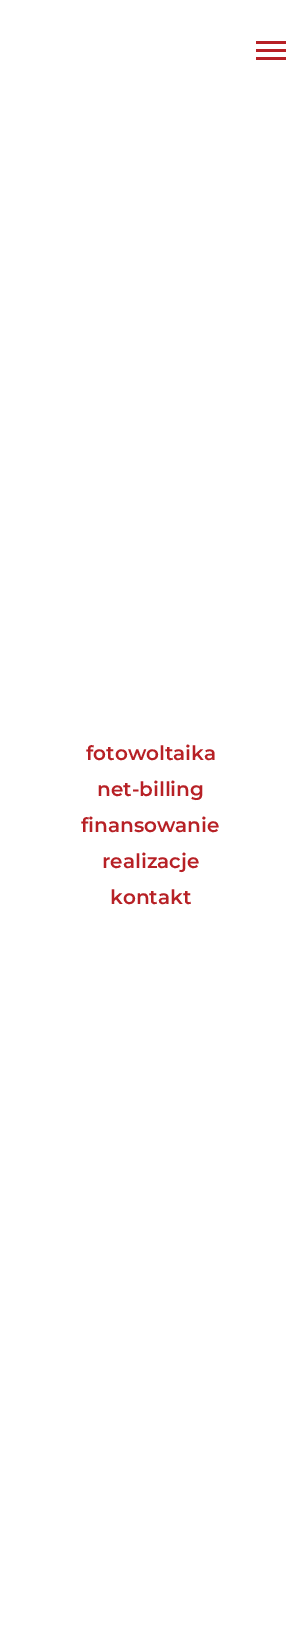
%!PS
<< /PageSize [301 1650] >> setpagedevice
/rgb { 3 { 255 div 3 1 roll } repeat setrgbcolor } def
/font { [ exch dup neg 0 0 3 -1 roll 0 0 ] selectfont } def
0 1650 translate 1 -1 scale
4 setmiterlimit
255 255 255 rgb
0 0 301 1650 rectfill
[
  [256 41 30 3 183 32 37]
  [256 49 30 3 183 32 37]
  [256 57 30 3 183 32 37]
] { aload pop rgb rectfill } forall
/Montserrat-SemiBold 20 font
[
  [(fotowoltaika) 86 760]
  [(net-billing) 97 796]
  [(finansowanie) 81 832]
  [(realizacje) 102 868]
  [(kontakt) 110 904]
] { aload pop moveto show } forall
showpage
